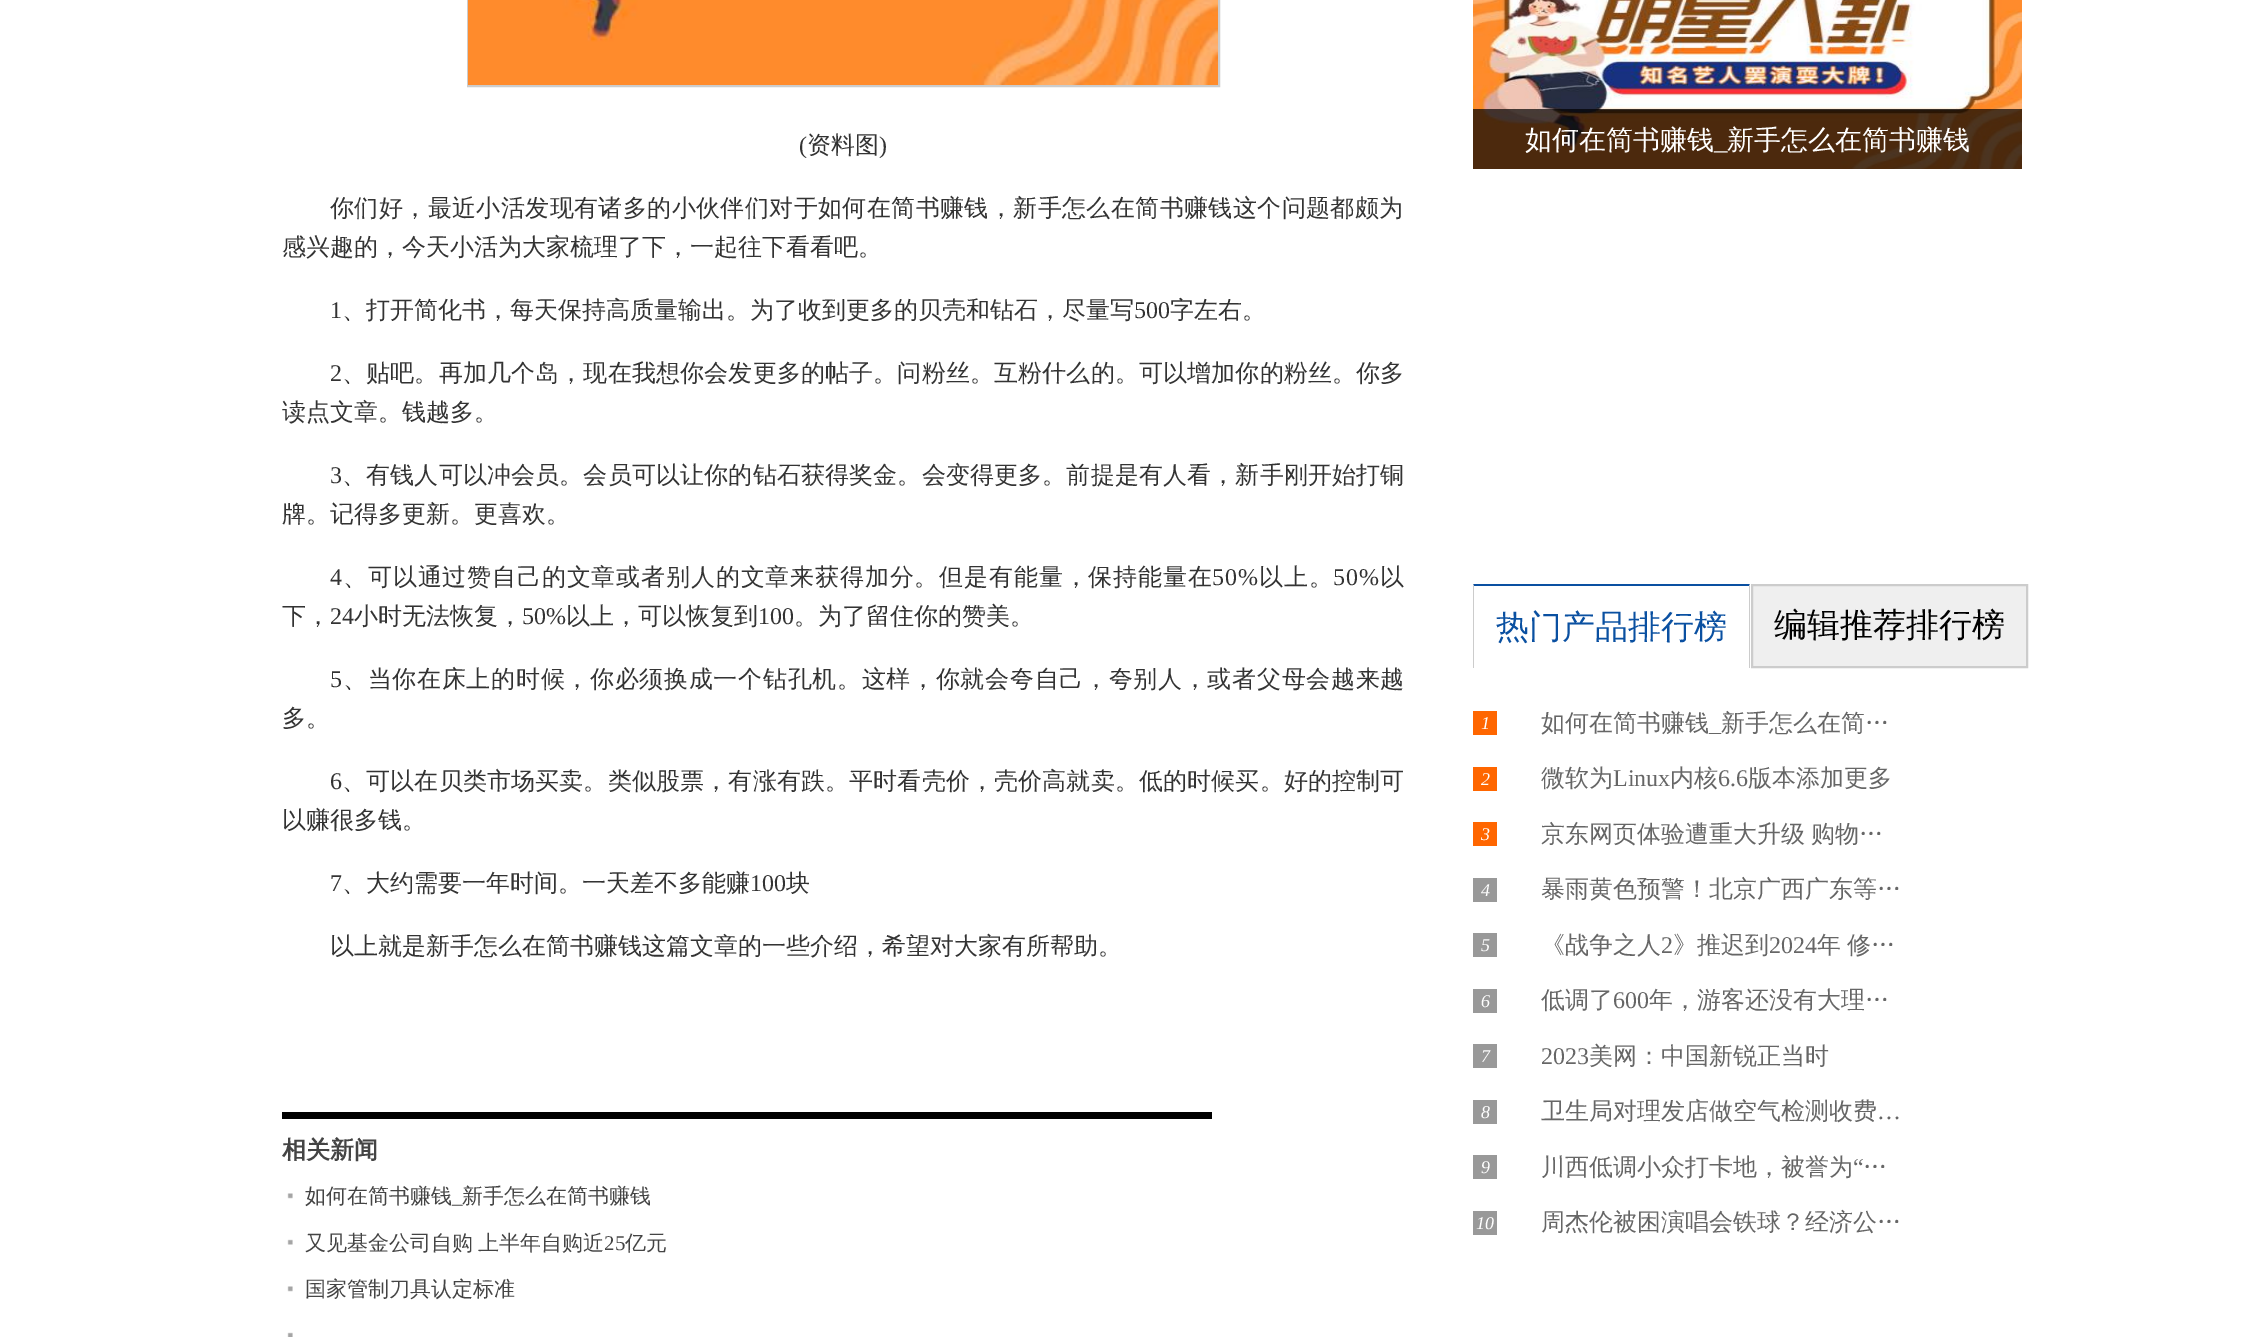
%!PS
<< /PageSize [2255 1337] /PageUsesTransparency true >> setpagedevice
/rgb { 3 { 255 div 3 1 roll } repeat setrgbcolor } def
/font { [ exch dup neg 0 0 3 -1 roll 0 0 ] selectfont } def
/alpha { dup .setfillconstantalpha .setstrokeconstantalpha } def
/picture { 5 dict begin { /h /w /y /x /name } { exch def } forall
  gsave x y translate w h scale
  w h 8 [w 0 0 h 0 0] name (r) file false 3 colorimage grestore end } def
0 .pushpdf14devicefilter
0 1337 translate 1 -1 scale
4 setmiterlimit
255 255 255 rgb
0 0 2255 1337 rectfill
204 204 204 rgb
2 setlinewidth
468 -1 751 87 rectstroke
(img/1.rgb) 468 0 750 85 picture
0 0 0 rgb
282 1112 930 7 rectfill
(img/2.rgb) 287 1193 6 6 picture
(img/3.rgb) 287 1239 6 6 picture
(img/2.rgb) 287 1286 6 6 picture
(img/4.rgb) 287 1332 6 5 picture
(img/5.rgb) 1473 0 549 169 picture
0.7 alpha
1473 109 549 60 rectfill
1 alpha
10 80 161 rgb
1473 584 moveto 1750 584 lineto 1749 586 lineto 1474 586 lineto closepath fill
204 204 204 rgb
1750 584 moveto 1750 668 lineto 1749 668 lineto 1749 586 lineto closepath fill
1473 668 moveto 1473 584 lineto 1474 586 lineto 1474 668 lineto closepath fill
239 239 239 rgb
1752 585 moveto 2027 585 lineto 2027 667 lineto 1752 667 lineto closepath gsave fill grestore
204 204 204 rgb
stroke
[
  [1473 711 24 24 255 102 0]
  [1473 767 24 24 255 102 0]
  [1473 822 24 24 255 102 0]
  [1473 878 24 24 153 153 153]
  [1473 933 24 24 153 153 153]
  [1473 989 24 24 153 153 153]
  [1473 1044 24 24 153 153 153]
  [1473 1100 24 24 153 153 153]
  [1473 1155 24 24 153 153 153]
  [1473 1211 24 24 153 153 153]
] { aload pop rgb rectfill } forall
/LiberationSerif-Regular 24 font
51 51 51 rgb
799 153 moveto (\() show
/WenQuanYiZenHei-Medium 24 font
807 153 moveto (资料图) show
/LiberationSerif-Regular 24 font
879 153 moveto (\)) show
/WenQuanYiZenHei-Medium 24 font
330 216 moveto 0.4 0 (你们好，最近小活发现有诸多的小伙伴们对于如何在简书赚钱，新手怎么在简书赚钱这个问题都颇为) ashow
282 255 moveto (感兴趣的，今天小活为大家梳理了下，一起往下看看吧。) show
/LiberationSerif-Regular 24 font
330 318 moveto (1) show
/WenQuanYiZenHei-Medium 24 font
342 318 moveto (、打开简化书，每天保持高质量输出。为了收到更多的贝壳和钻石，尽量写) show
/LiberationSerif-Regular 24 font
1134 318 moveto (500) show
/WenQuanYiZenHei-Medium 24 font
1170 318 moveto (字左右。) show
/LiberationSerif-Regular 24 font
330 381 moveto 0.15 0 (2) ashow
/WenQuanYiZenHei-Medium 24 font
342 381 moveto 0.15 0 (、贴吧。再加几个岛，现在我想你会发更多的帖子。问粉丝。互粉什么的。可以增加你的粉丝。你多) ashow
282 420 moveto (读点文章。钱越多。) show
/LiberationSerif-Regular 24 font
330 483 moveto 0.15 0 (3) ashow
/WenQuanYiZenHei-Medium 24 font
342 483 moveto 0.15 0 (、有钱人可以冲会员。会员可以让你的钻石获得奖金。会变得更多。前提是有人看，新手刚开始打铜) ashow
282 522 moveto (牌。记得多更新。更喜欢。) show
/LiberationSerif-Regular 24 font
330 585 moveto 0.85 0 (4) ashow
/WenQuanYiZenHei-Medium 24 font
343 585 moveto 0.85 0 (、可以通过赞自己的文章或者别人的文章来获得加分。但是有能量，保持能量在) ashow
/LiberationSerif-Regular 24 font
1212 585 moveto 0.85 0 (50%) ashow
/WenQuanYiZenHei-Medium 24 font
1259 585 moveto 0.85 0 (以上。) ashow
/LiberationSerif-Regular 24 font
1333 585 moveto 0.85 0 (50%) ashow
/WenQuanYiZenHei-Medium 24 font
1380 585 moveto 0.85 0 (以) ashow
282 624 moveto (下，) show
/LiberationSerif-Regular 24 font
330 624 moveto (24) show
/WenQuanYiZenHei-Medium 24 font
354 624 moveto (小时无法恢复，) show
/LiberationSerif-Regular 24 font
522 624 moveto (50%) show
/WenQuanYiZenHei-Medium 24 font
566 624 moveto (以上，可以恢复到) show
/LiberationSerif-Regular 24 font
758 624 moveto (100) show
/WenQuanYiZenHei-Medium 24 font
794 624 moveto (。为了留住你的赞美。) show
/LiberationSerif-Regular 24 font
330 687 moveto 0.7 0 (5) ashow
/WenQuanYiZenHei-Medium 24 font
343 687 moveto 0.7 0 (、当你在床上的时候，你必须换成一个钻孔机。这样，你就会夸自己，夸别人，或者父母会越来越) ashow
282 726 moveto (多。) show
/LiberationSerif-Regular 24 font
330 789 moveto 0.15 0 (6) ashow
/WenQuanYiZenHei-Medium 24 font
342 789 moveto 0.15 0 (、可以在贝类市场买卖。类似股票，有涨有跌。平时看壳价，壳价高就卖。低的时候买。好的控制可) ashow
282 828 moveto (以赚很多钱。) show
/LiberationSerif-Regular 24 font
330 891 moveto (7) show
/WenQuanYiZenHei-Medium 24 font
342 891 moveto (、大约需要一年时间。一天差不多能赚) show
/LiberationSerif-Regular 24 font
750 891 moveto (100) show
/WenQuanYiZenHei-Medium 24 font
786 891 moveto (块) show
330 954 moveto (以上就是新手怎么在简书赚钱这篇文章的一些介绍，希望对大家有所帮助。) show
/WenQuanYiZenHei-Bold 24 font
68 68 68 rgb
282 1158 moveto (相关新闻) show
/WenQuanYiZenHei-Medium 21 font
305 1203 moveto (如何在简书赚钱) show
/LiberationSerif-Regular 21 font
452 1203 moveto (_) show
/WenQuanYiZenHei-Medium 21 font
462 1203 moveto (新手怎么在简书赚钱) show
305 1250 moveto -1 0 32 (又见基金公司自购 上半年自购近) widthshow
/LiberationSerif-Regular 21 font
604 1250 moveto (25) show
/WenQuanYiZenHei-Medium 21 font
625 1250 moveto (亿元) show
305 1296 moveto (国家管制刀具认定标准) show
/WenQuanYiZenHei-Medium 27 font
255 255 255 rgb
1525 149 moveto (如何在简书赚钱) show
/LiberationSerif-Regular 27 font
1714 149 moveto (_) show
/WenQuanYiZenHei-Medium 27 font
1727 149 moveto (新手怎么在简书赚钱) show
/WenQuanYiZenHei-Medium 33 font
10 80 161 rgb
1496 638 moveto (热门产品排行榜) show
0 0 0 rgb
1774 636 moveto (编辑推荐排行榜) show
/LiberationSerif-Italic 18 font
255 255 255 rgb
1481 729 moveto (1) show
/WenQuanYiZenHei-Medium 24 font
102 102 102 rgb
1541 731 moveto (如何在简书赚钱) show
/LiberationSerif-Regular 24 font
1709 731 moveto (_) show
/WenQuanYiZenHei-Medium 24 font
1721 731 moveto (新手怎么在简…) show
/LiberationSerif-Italic 18 font
255 255 255 rgb
1481 785 moveto (2) show
/WenQuanYiZenHei-Medium 24 font
102 102 102 rgb
1541 786 moveto (微软为) show
/LiberationSerif-Regular 24 font
1613 786 moveto (Linux) show
/WenQuanYiZenHei-Medium 24 font
1670 786 moveto (内核) show
/LiberationSerif-Regular 24 font
1718 786 moveto (6.6) show
/WenQuanYiZenHei-Medium 24 font
1748 786 moveto (版本添加更多) show
/LiberationSerif-Italic 18 font
255 255 255 rgb
1481 840 moveto (3) show
/WenQuanYiZenHei-Medium 24 font
102 102 102 rgb
1541 842 moveto -1 0 32 (京东网页体验遭重大升级 购物…) widthshow
/LiberationSerif-Italic 18 font
255 255 255 rgb
1481 896 moveto (4) show
/WenQuanYiZenHei-Medium 24 font
102 102 102 rgb
1541 897 moveto (暴雨黄色预警！北京广西广东等…) show
/LiberationSerif-Italic 18 font
255 255 255 rgb
1481 951 moveto (5) show
/WenQuanYiZenHei-Medium 24 font
102 102 102 rgb
1541 953 moveto (《战争之人) show
/LiberationSerif-Regular 24 font
1661 953 moveto (2) show
/WenQuanYiZenHei-Medium 24 font
1673 953 moveto (》推迟到) show
/LiberationSerif-Regular 24 font
1769 953 moveto (2024) show
/WenQuanYiZenHei-Medium 24 font
1817 953 moveto -1 0 32 (年 修…) widthshow
/LiberationSerif-Italic 18 font
255 255 255 rgb
1481 1007 moveto (6) show
/WenQuanYiZenHei-Medium 24 font
102 102 102 rgb
1541 1008 moveto (低调了) show
/LiberationSerif-Regular 24 font
1613 1008 moveto (600) show
/WenQuanYiZenHei-Medium 24 font
1649 1008 moveto (年，游客还没有大理…) show
/LiberationSerif-Italic 18 font
255 255 255 rgb
1481 1062 moveto (7) show
/LiberationSerif-Regular 24 font
102 102 102 rgb
1541 1064 moveto (2023) show
/WenQuanYiZenHei-Medium 24 font
1589 1064 moveto (美网：中国新锐正当时) show
/LiberationSerif-Italic 18 font
255 255 255 rgb
1481 1118 moveto (8) show
/WenQuanYiZenHei-Medium 24 font
102 102 102 rgb
1541 1119 moveto (卫生局对理发店做空气检测收费) show
/LiberationSerif-Regular 24 font
1877 1119 moveto (…) show
/LiberationSerif-Italic 18 font
255 255 255 rgb
1481 1173 moveto (9) show
/WenQuanYiZenHei-Medium 24 font
102 102 102 rgb
1541 1175 moveto (川西低调小众打卡地，被誉为) show
/LiberationSerif-Regular 24 font
1853 1175 moveto (“) show
/WenQuanYiZenHei-Medium 24 font
1863 1175 moveto (…) show
/LiberationSerif-Italic 18 font
255 255 255 rgb
1476 1229 moveto (10) show
/WenQuanYiZenHei-Medium 24 font
102 102 102 rgb
1541 1230 moveto (周杰伦被困演唱会铁球？经济公…) show
.poppdf14devicefilter showpage
